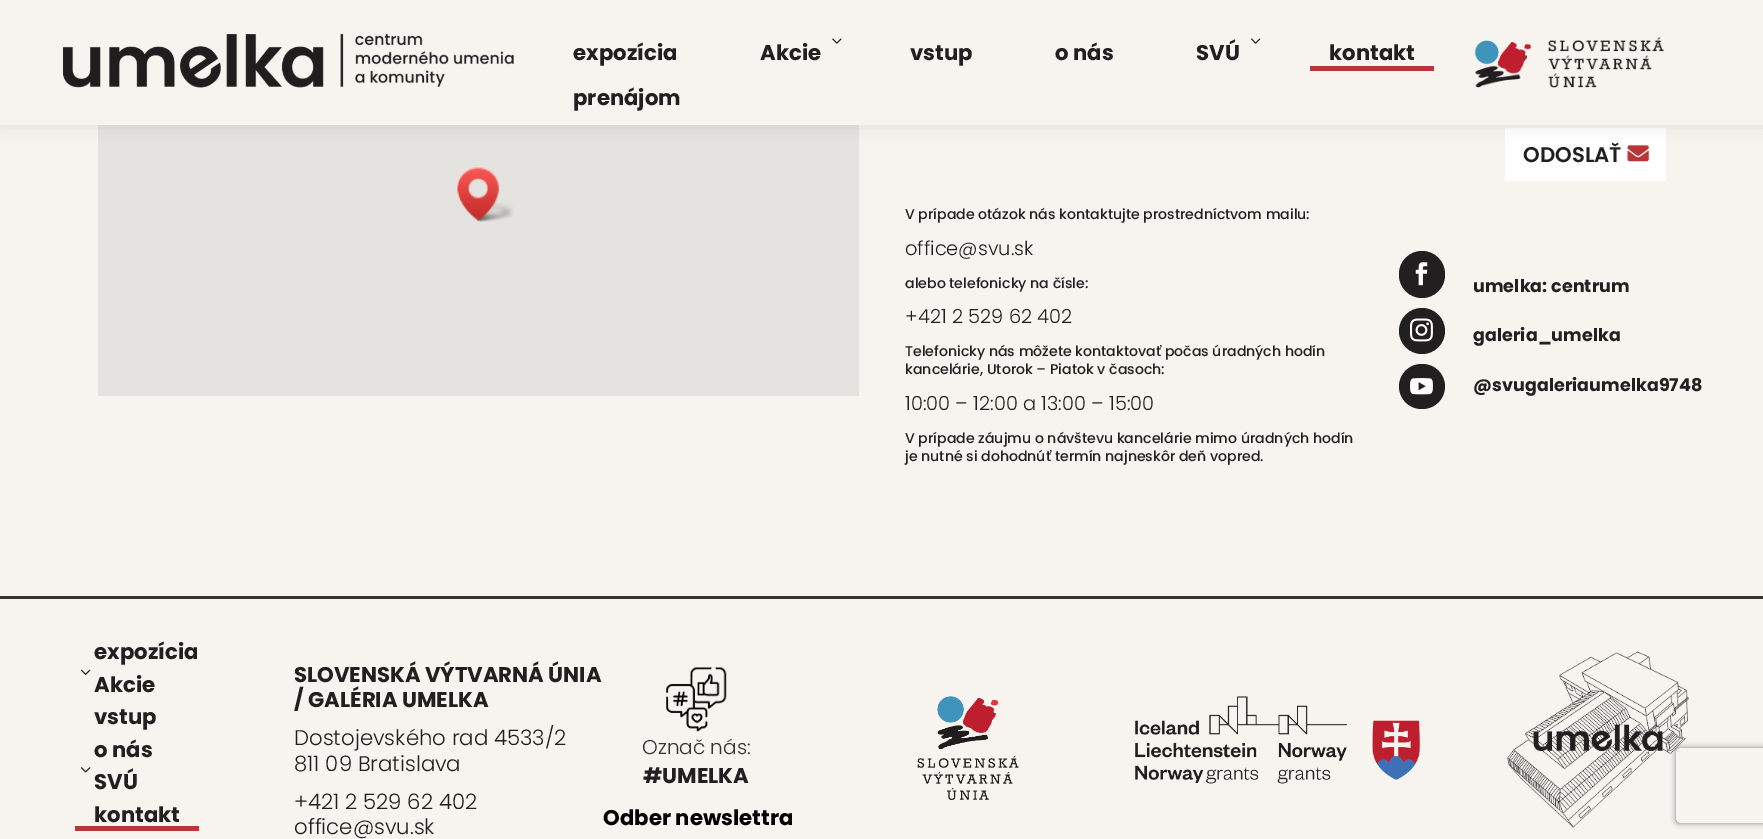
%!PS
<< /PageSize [1763 839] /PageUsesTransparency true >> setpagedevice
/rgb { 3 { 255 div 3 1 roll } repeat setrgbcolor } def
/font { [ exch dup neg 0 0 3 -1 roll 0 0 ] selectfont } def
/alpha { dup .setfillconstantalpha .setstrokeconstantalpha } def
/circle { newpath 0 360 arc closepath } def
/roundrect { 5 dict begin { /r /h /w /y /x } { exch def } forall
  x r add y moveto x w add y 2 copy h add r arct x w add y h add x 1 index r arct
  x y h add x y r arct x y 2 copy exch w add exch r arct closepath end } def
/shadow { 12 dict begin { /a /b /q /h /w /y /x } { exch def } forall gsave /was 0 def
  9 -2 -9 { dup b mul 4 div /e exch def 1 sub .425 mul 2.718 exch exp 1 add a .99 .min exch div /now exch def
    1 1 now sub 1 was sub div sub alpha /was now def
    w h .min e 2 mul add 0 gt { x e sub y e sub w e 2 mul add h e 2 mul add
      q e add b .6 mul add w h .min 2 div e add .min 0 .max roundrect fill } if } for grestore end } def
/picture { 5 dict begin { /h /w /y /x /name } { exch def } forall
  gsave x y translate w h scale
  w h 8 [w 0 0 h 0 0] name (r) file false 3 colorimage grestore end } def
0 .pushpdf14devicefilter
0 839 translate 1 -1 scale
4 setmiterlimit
247 244 239 rgb
0 0 1763 839 rectfill
229 227 223 rgb
98 125 761 271 rectfill
255 255 255 rgb
1505 128 161 53 rectfill
(img/6.rgb) 1627 145 22 17 picture
0 0 0 rgb
0 -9 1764 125 0 11 0.3 shadow
247 244 239 rgb
0 0 1763 125 rectfill
(img/1.rgb) 63 34 451 54 picture
(img/2.rgb) 832 38 10 6 picture
(img/3.rgb) 1251 38 10 6 picture
187 52 56 rgb
1310 66 124 5 rectfill
(img/4.rgb) 1474 37 190 51 picture
(img/5.rgb) 457 167 57 55 picture
34 31 32 rgb
1399 251 46 47 23 roundrect fill
(img/7.rgb) 1415 262 13 24 picture
1422 331 23 circle fill
(img/8.rgb) 1410 318 23 24 picture
1399 364 46 45 22.5 roundrect fill
(img/9.rgb) 1410 378 23 17 picture
51 51 51 rgb
0 596 1763 3 rectfill
(img/10.rgb) 81 669 10 6 picture
(img/11.rgb) 81 767 10 6 picture
187 52 56 rgb
75 826 124 5 rectfill
(img/12.rgb) 666 667 61 65 picture
(img/13.rgb) 917 696 102 104 picture
(img/14.rgb) 1135 696 285 88 picture
(img/15.rgb) 1507 651 182 177 picture
gsave
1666 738 moveto 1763 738 lineto 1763 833 lineto 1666 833 lineto closepath 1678.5 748 moveto 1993.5 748 lineto 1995 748 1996 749 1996 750.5 curveto 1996 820.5 lineto 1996 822 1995 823 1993.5 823 curveto 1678.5 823 lineto 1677 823 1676 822 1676 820.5 curveto 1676 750.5 lineto 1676 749 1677 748 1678.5 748 curveto closepath eoclip newpath
128 128 128 rgb
1676 748 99 75 2.5 3 1 shadow
grestore
/Poppins-Bold 21.25 font
34 31 32 rgb
[
  [(expozícia) 573 60]
  [(Akcie) 760 60]
  [(vstup) 910 60]
  [(o nás) 1055 60]
  [(SVÚ) 1196 60]
  [(kontakt) 1329 60]
  [(prenájom) 573 105]
] { aload pop moveto show } forall
/Poppins-SemiBold 21.25 font
1523 162 moveto (ODOSLAŤ) show
/Poppins-Medium 14.1 font
905 219 moveto (V prípade otázok nás kontaktujte prostredníctvom mailu:) show
/Poppins-Light 19.4 font
905 255 moveto (office@svu.sk) show
/Poppins-Medium 14.1 font
905 288 moveto (alebo telefonicky na čísle:) show
/Poppins-Light 19.4 font
905 323 moveto (+421 2 529 62 402) show
/Poppins-Medium 14.1 font
905 356 moveto (Telefonicky nás môžete kontaktovať počas úradných hodín) show
905 374 moveto (kancelárie, Utorok – Piatok v časoch:) show
/Poppins-Light 19.4 font
905 410 moveto (10:00 – 12:00 a 13:00 – 15:00) show
/Poppins-Medium 14.1 font
905 443 moveto (V prípade záujmu o návštevu kancelárie mimo úradných hodín) show
905 461 moveto (je nutné si dohodnúť termín najneskôr deň vopred.) show
/Poppins-Bold 17.6 font
[
  [(umelka: centrum) 1473 292]
  [(galeria_umelka) 1473 341]
  [(@svugaleriaumelka9748) 1473 391]
] { aload pop moveto show } forall
/Poppins-Bold 21.25 font
[
  [(expozícia) 94 659]
  [(Akcie) 94 692]
  [(vstup) 94 724]
  [(o nás) 94 757]
  [(SVÚ) 94 789]
  [(kontakt) 94 822]
  [(SLOVENSKÁ VÝTVARNÁ ÚNIA) 294 682]
  [(/ GALÉRIA UMELKA) 294 707]
] { aload pop moveto show } forall
/Poppins-Light 21.25 font
[
  [(Dostojevského rad 4533/2) 294 745]
  [(811 09 Bratislava) 294 771]
  [(+421 2 529 62 402) 294 809]
  [(office@svu.sk) 294 834]
] { aload pop moveto show } forall
/Poppins-Light 20 font
51 51 51 rgb
642 754 moveto (Označ nás:) show
/Poppins-Bold 21.25 font
34 31 32 rgb
643 783 moveto (#UMELKA) show
0 0 0 rgb
603 825 moveto (Odber newslettra) show
.poppdf14devicefilter showpage
